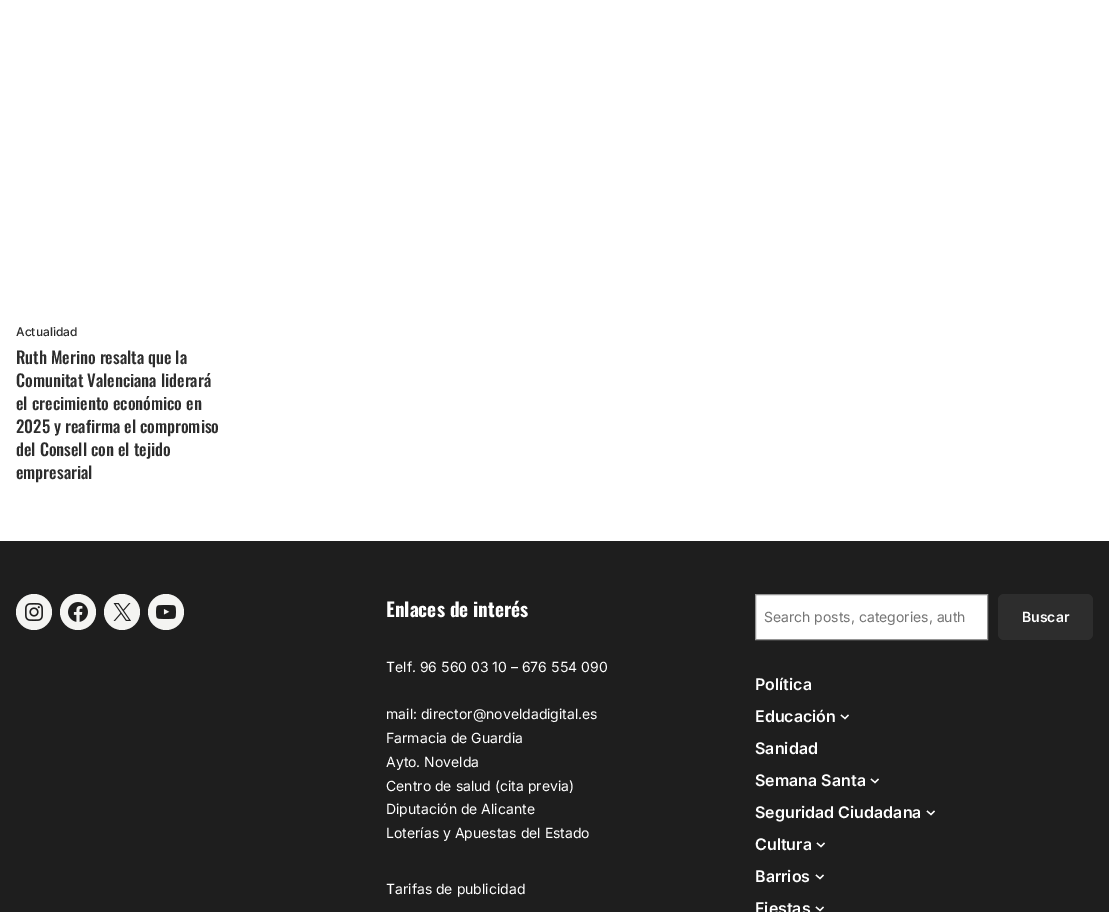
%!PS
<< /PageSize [1109 912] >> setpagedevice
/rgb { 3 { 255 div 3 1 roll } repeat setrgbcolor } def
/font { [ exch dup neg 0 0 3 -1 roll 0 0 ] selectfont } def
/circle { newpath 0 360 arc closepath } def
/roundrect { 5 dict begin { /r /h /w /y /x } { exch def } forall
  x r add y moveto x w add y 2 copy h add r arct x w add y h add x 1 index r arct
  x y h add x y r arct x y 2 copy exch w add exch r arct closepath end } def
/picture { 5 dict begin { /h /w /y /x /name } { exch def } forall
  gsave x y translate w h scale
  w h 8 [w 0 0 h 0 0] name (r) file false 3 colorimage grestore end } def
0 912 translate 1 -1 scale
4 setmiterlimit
255 255 255 rgb
0 0 1109 912 rectfill
30 30 30 rgb
0 541 1109 371 rectfill
244 244 242 rgb
34 612 18 circle fill
(img/1.rgb) 25 603 18 18 picture
78 612 18 circle fill
(img/2.rgb) 68 602 20 20 picture
122 612 18 circle fill
(img/3.rgb) 113 603 18 18 picture
166 612 18 circle fill
(img/4.rgb) 156 605 20 14 picture
255 255 255 rgb
755.5 594.5 moveto 987.5 594.5 lineto 987.5 639.5 lineto 755.5 639.5 lineto closepath gsave fill grestore
148 148 148 rgb
stroke
45 45 45 rgb
998 594 95 46 6 roundrect fill
255 255 255 rgb
1.2 setlinewidth
841 715 moveto 845 718.5 lineto 848.5 715 lineto stroke
871 779 moveto 875 782.5 lineto 878.5 779 lineto stroke
927 811 moveto 931 814.5 lineto 934.5 811 lineto stroke
817 843 moveto 821 846.5 lineto 824.5 843 lineto stroke
816 875 moveto 820 878.5 lineto 823.5 875 lineto stroke
816 907 moveto 820 910.5 lineto 823.5 907 lineto stroke
/Inter-Medium 12 font
45 45 45 rgb
16 336 moveto (Actualidad) show
/Oswald-Medium 16.75 font
[
  [(Ruth Merino resalta que la) 16 364]
  [(Comunitat Valenciana liderará) 16 387]
  [(el crecimiento económico en) 16 410]
  [(2025 y reafirma el compromiso) 16 433]
  [(del Consell con el tejido) 16 456]
  [(empresarial) 16 479]
] { aload pop moveto show } forall
/Oswald-Bold 19.25 font
255 255 255 rgb
386 617 moveto (Enlaces de interés) show
/Inter-Regular 14 font
[
  [(Telf. 96 560 03 10 – 676 554 090) 386 672]
  [(mail: director@noveldadigital.es) 386 719]
  [(Farmacia de Guardia) 386 743]
  [(Ayto. Novelda) 386 767]
  [(Centro de salud \(cita previa\)) 386 791]
  [(Diputación de Alicante) 386 814]
  [(Loterías y Apuestas del Estado) 386 838]
  [(Tarifas de publicidad) 386 894]
] { aload pop moveto show } forall
117 117 117 rgb
764 622 moveto (Search posts, categories, auth) show
/Inter-SemiBold 14 font
255 255 255 rgb
1022 622 moveto (Buscar) show
/Inter-SemiBold 16 font
[
  [(Política) 755 690]
  [(Educación) 755 722]
  [(Sanidad) 755 754]
  [(Semana Santa) 755 786]
  [(Seguridad Ciudadana) 755 818]
  [(Cultura) 755 850]
  [(Barrios) 755 882]
  [(Fiestas) 755 914]
] { aload pop moveto show } forall
showpage
